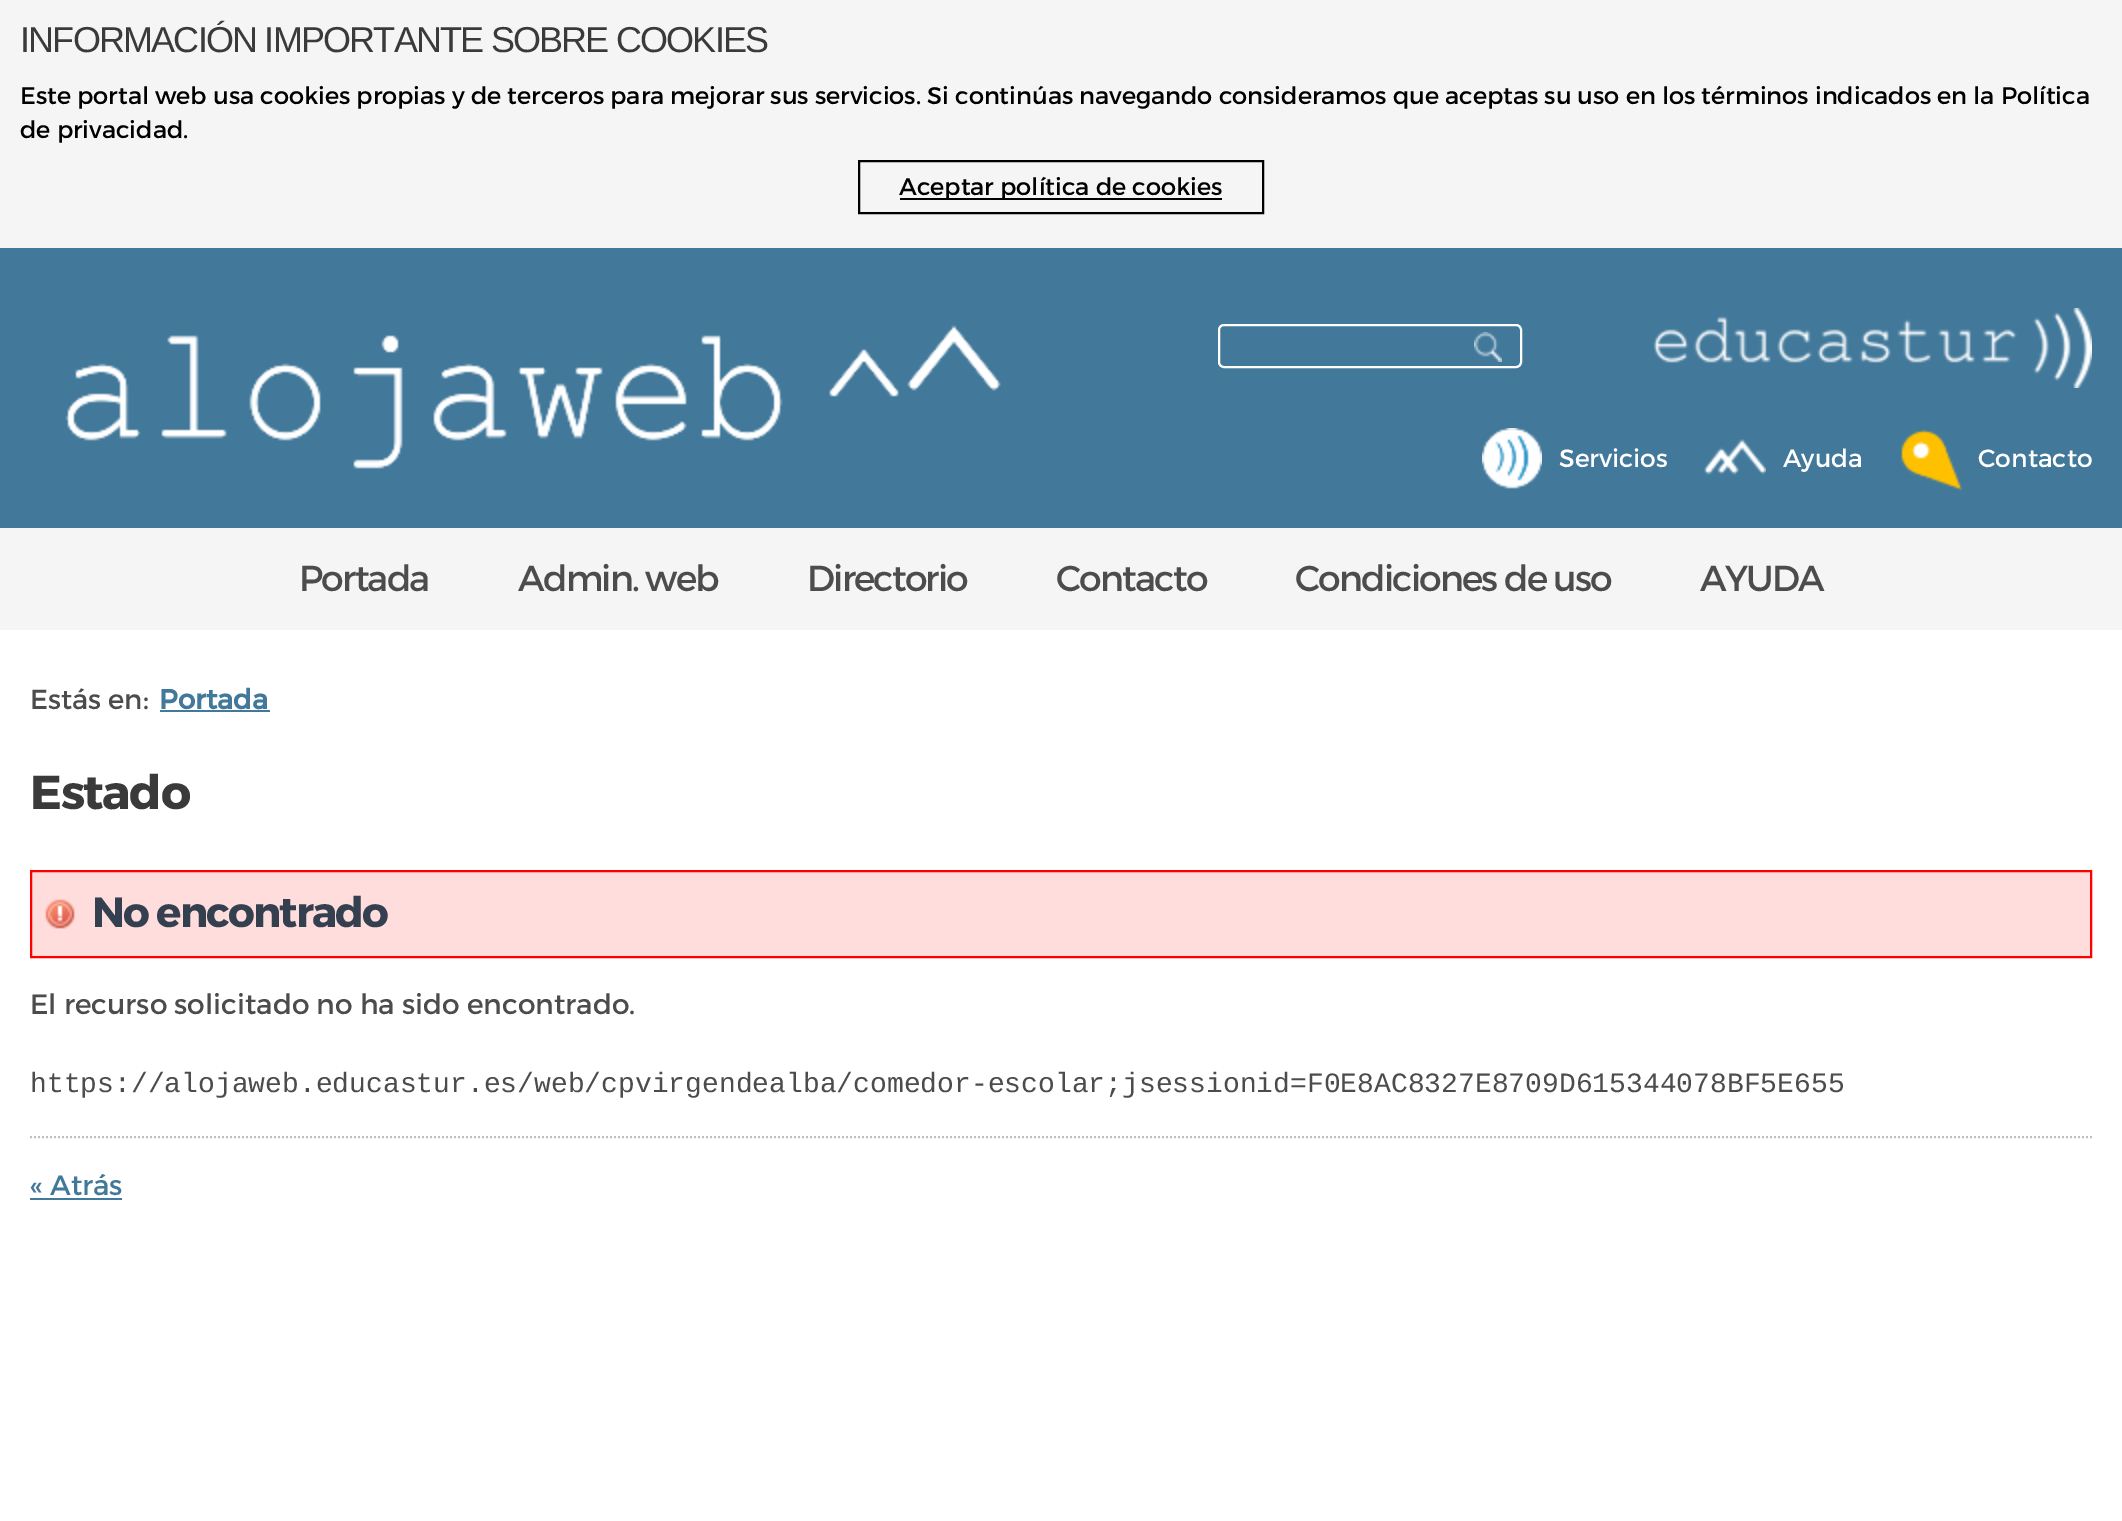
%!PS
<< /PageSize [2122 1521] >> setpagedevice
/rgb { 3 { 255 div 3 1 roll } repeat setrgbcolor } def
/font { [ exch dup neg 0 0 3 -1 roll 0 0 ] selectfont } def
/roundrect { 5 dict begin { /r /h /w /y /x } { exch def } forall
  x r add y moveto x w add y 2 copy h add r arct x w add y h add x 1 index r arct
  x y h add x y r arct x y 2 copy exch w add exch r arct closepath end } def
/picture { 5 dict begin { /h /w /y /x /name } { exch def } forall
  gsave x y translate w h scale
  w h 8 [w 0 0 h 0 0] name (r) file false 3 colorimage grestore end } def
0 1521 translate 1 -1 scale
4 setmiterlimit
255 255 255 rgb
0 0 2122 1521 rectfill
245 245 245 rgb
0 0 2122 248 rectfill
0 0 0 rgb
2 setlinewidth
859 161 404 52 rectstroke
900 198 322 2 rectfill
66 121 155 rgb
0 248 2122 280 rectfill
(img/1.rgb) 65 325 936 144 picture
255 255 255 rgb
1219 325 302 42 5 roundrect stroke
(img/2.rgb) 1474 332 28 30 picture
(img/3.rgb) 1654 308 438 80 picture
(img/4.rgb) 1482 428 60 61 picture
(img/5.rgb) 1704 439 62 36 picture
(img/6.rgb) 1901 430 61 61 picture
[
  [0 528 2122 102 245 245 245]
  [160 710 110 2 66 121 155]
  [32 872 2058 84 255 221 221]
] { aload pop rgb rectfill } forall
(img/7.rgb) 45 899 30 30 picture
255 0 0 rgb
31 871 2060 86 rectstroke
191 191 191 rgb
[2 2] 0 setdash
30 1137 moveto 2092 1137 lineto stroke
66 121 155 rgb
30 1198 92 2 rectfill
/LiberationSans-Regular 36 font
58 58 58 rgb
20 52 moveto -1.8 0 (INFORMACIÓN IMPORTANTE SOBRE COOKIES) ashow
/Montserrat-Regular 24 font
0 0 0 rgb
[
  [(Este portal web usa cookies propias y de terceros para mejorar sus servicios. Si continúas navegando consideramos que aceptas su uso en los términos indicados en la Política) 20 104]
  [(de privacidad.) 20 138]
  [(Aceptar política de cookies) 899 195]
] { aload pop moveto show } forall
/Montserrat-Regular 25 font
255 255 255 rgb
[
  [(Servicios) 1559 467]
  [(Ayuda) 1783 467]
  [(Contacto) 1978 467]
] { aload pop moveto show } forall
/Montserrat-Regular 36 font
76 76 76 rgb
299 591 moveto -1.8 0 (Portada) ashow
518 591 moveto -1.8 0 (Admin. web) ashow
807 591 moveto -1.8 0 (Directorio) ashow
1056 591 moveto -1.8 0 (Contacto) ashow
1295 591 moveto -1.8 0 (Condiciones de uso) ashow
1700 591 moveto -1.8 0 (AYUDA) ashow
/Montserrat-Regular 27.5 font
30 709 moveto (Estás en:) show
/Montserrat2-Bold 27.5 font
66 121 155 rgb
159 709 moveto (Portada) show
/Montserrat-Bold 47.5 font
58 58 58 rgb
30 809 moveto -1.5 0 (Estado) ashow
/Montserrat-Bold 42 font
52 64 79 rgb
92 927 moveto -1.8 0 (No encontrado) ashow
/Montserrat-Regular 28 font
76 76 76 rgb
30 1014 moveto (El recurso solicitado no ha sido encontrado.) show
/LiberationMono-Regular 28 font
30 1092 moveto (https://alojaweb.educastur.es/web/cpvirgendealba/comedor-escolar;jsessionid=F0E8AC8327E8709D615344078BF5E655) show
/Montserrat-Regular 28 font
66 121 155 rgb
30 1195 moveto (« Atrás) show
showpage
